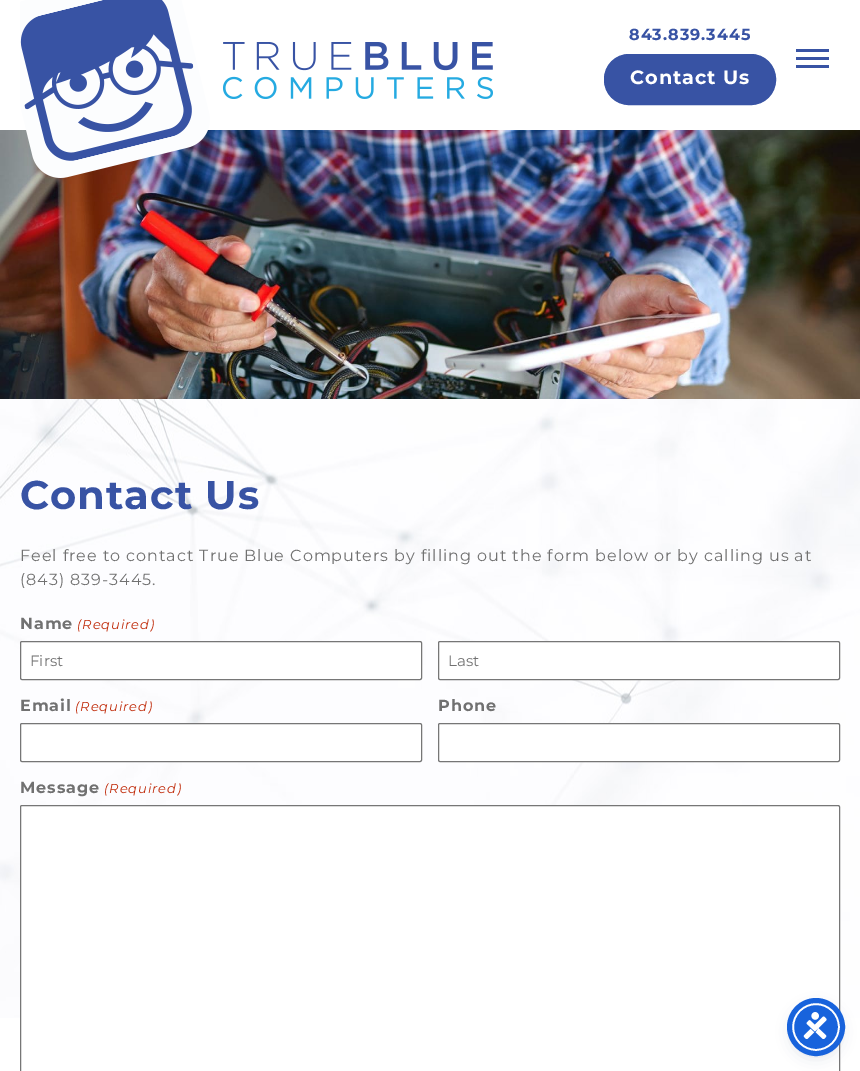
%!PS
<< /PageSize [860 1071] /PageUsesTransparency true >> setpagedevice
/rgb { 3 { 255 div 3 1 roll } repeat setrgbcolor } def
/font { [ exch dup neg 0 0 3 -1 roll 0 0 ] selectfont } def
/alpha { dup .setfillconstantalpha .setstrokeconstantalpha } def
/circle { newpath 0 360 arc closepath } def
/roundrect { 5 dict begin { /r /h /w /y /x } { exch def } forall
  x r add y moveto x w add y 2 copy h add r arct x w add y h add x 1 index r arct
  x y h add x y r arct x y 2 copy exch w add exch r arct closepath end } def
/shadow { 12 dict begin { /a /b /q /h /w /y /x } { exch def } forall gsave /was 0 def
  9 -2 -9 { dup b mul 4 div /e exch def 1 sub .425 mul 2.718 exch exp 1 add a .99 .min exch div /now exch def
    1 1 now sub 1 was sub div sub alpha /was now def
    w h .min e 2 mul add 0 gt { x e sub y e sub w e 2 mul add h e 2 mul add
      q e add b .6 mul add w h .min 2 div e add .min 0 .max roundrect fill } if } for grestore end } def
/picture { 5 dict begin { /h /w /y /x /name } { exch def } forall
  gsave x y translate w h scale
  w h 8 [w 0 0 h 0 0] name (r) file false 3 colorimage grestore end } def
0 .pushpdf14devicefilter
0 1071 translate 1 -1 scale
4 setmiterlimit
255 255 255 rgb
0 0 860 1071 rectfill
(img/1.rgb) 0 399 860 619 picture
(img/3.rgb) 0 130 860 269 picture
(img/2.rgb) 20 0 473 178 picture
56 83 164 rgb
604.5 54.5 171 50 24.5 roundrect gsave fill grestore
stroke
[
  [796 57 33 3 56 83 164]
  [796 49 33 3 56 83 164]
  [796 65 33 3 56 83 164]
] { aload pop rgb rectfill } forall
255 255 255 rgb
20.5 641.5 401 38 1.5 roundrect gsave fill grestore
118 118 118 rgb
stroke
255 255 255 rgb
438.5 641.5 401 38 1.5 roundrect gsave fill grestore
118 118 118 rgb
stroke
255 255 255 rgb
20.5 723.5 401 38 1.5 roundrect gsave fill grestore
118 118 118 rgb
stroke
255 255 255 rgb
438.5 723.5 401 38 1.5 roundrect gsave fill grestore
118 118 118 rgb
stroke
255 255 255 rgb
20.5 805.5 819 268 1.5 roundrect gsave fill grestore
118 118 118 rgb
stroke
93 100 148 rgb
792 1005 48 48 24 2 0.2 shadow
37 44 97 rgb
792 1008 48 48 24 7.5 0.15 shadow
24 99 220 rgb
816 1027 23 circle gsave fill grestore
255 255 255 rgb
2 setlinewidth
stroke
24 99 220 rgb
5 setlinewidth
816 1027 26.5 circle stroke
(img/4.rgb) 803 1012 24 27 picture
/Montserrat-Bold 16 font
56 83 164 rgb
629 40 moveto 0.95 0 (843.839.3445) ashow
/Montserrat-Bold 19.25 font
255 255 255 rgb
630 84 moveto 0.95 0 (Contact Us) ashow
/Montserrat-Bold 40 font
56 83 164 rgb
20 509 moveto 0.95 0 (Contact Us) ashow
/Montserrat-Regular 16 font
113 113 113 rgb
20 561 moveto 0.95 0 (Feel free to contact True Blue Computers by filling out the form below or by calling us at) ashow
20 585 moveto 0.95 0 (\(843\) 839-3445.) ashow
/Montserrat-Bold 16 font
20 629 moveto 0.95 0 (Name) ashow
/Montserrat-Italic 13 font
192 43 10 rgb
77 629 moveto 0.95 0 (\(Required\)) ashow
/Montserrat-Regular 15 font
113 113 113 rgb
30 666 moveto (First) show
448 666 moveto (Last) show
/Montserrat-Bold 16 font
20 711 moveto 0.95 0 (Email) ashow
/Montserrat-Italic 13 font
192 43 10 rgb
75 711 moveto 0.95 0 (\(Required\)) ashow
/Montserrat-Bold 16 font
113 113 113 rgb
438 711 moveto 0.95 0 (Phone) ashow
20 793 moveto 0.95 0 (Message) ashow
/Montserrat-Italic 13 font
192 43 10 rgb
104 793 moveto 0.95 0 (\(Required\)) ashow
.poppdf14devicefilter showpage
